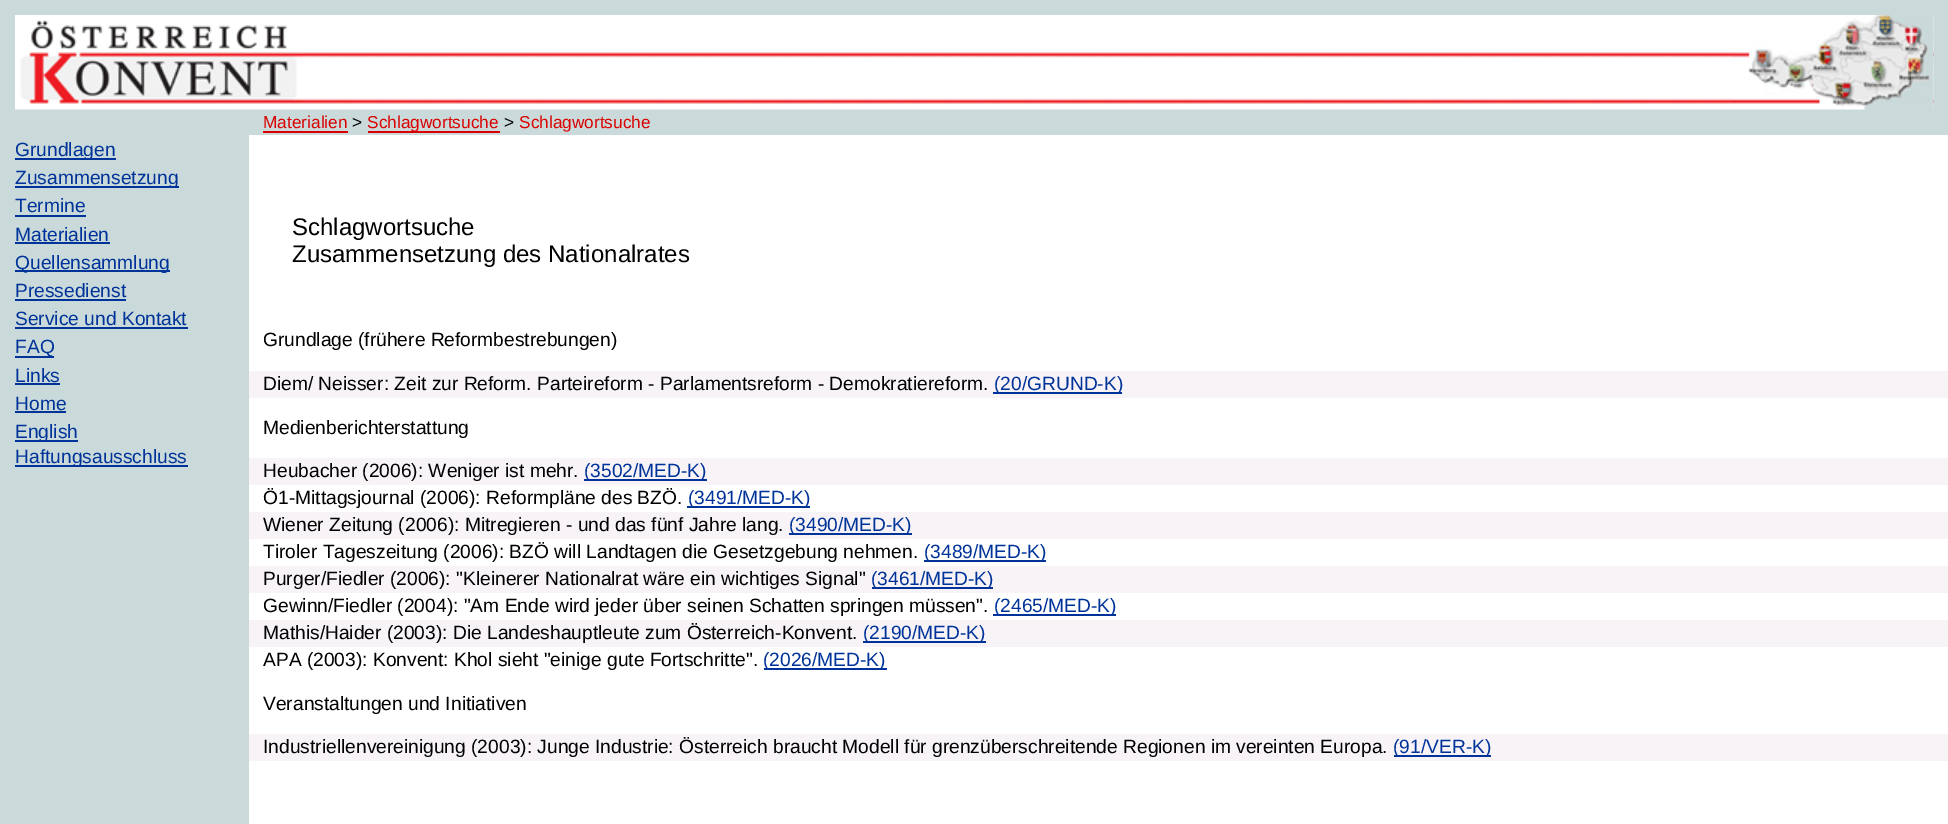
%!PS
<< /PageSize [1948 824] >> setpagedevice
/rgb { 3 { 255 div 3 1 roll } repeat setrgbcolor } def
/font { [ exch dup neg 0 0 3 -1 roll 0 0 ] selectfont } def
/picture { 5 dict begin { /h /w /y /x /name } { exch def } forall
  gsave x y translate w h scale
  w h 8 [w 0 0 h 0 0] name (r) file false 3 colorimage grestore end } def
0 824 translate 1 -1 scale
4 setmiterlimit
202 217 217 rgb
0 0 1948 824 rectfill
(img/1.rgb) 15 15 1919 95 picture
(img/2.rgb) 15 20 288 84 picture
(img/3.rgb) 1731 15 203 95 picture
[
  [263 131 85 2 218 0 0]
  [368 131 132 2 218 0 0]
  [15 158 101 2 0 51 153]
  [15 186 164 2 0 51 153]
  [15 215 71 2 0 51 153]
  [15 242 95 2 0 51 153]
  [15 270 155 2 0 51 153]
  [15 299 111 2 0 51 153]
  [15 327 173 2 0 51 153]
  [15 356 39 2 0 51 153]
  [15 383 45 2 0 51 153]
  [15 411 51 2 0 51 153]
  [15 440 63 2 0 51 153]
  [15 465 173 2 0 51 153]
  [249 135 1699 689 255 255 255]
  [249 371 1699 27 247 243 247]
  [993 392 129 2 0 51 153]
  [249 458 1699 27 247 243 247]
  [584 479 123 2 0 51 153]
  [687 506 123 2 0 51 153]
  [249 512 1699 27 247 243 247]
  [789 533 123 2 0 51 153]
  [924 560 122 2 0 51 153]
  [249 566 1699 27 247 243 247]
  [872 587 121 2 0 51 153]
  [993 614 123 2 0 51 153]
  [249 620 1699 27 247 243 247]
  [863 641 123 2 0 51 153]
  [764 668 123 2 0 51 153]
  [249 734 1699 27 247 243 247]
  [1394 755 97 2 0 51 153]
] { aload pop rgb rectfill } forall
/LiberationSans-Regular 17.25 font
218 0 0 rgb
263 128 moveto (Materialien) show
0 0 0 rgb
352 128 moveto (>) show
218 0 0 rgb
367 128 moveto (Schlagwortsuche) show
0 0 0 rgb
504 128 moveto (>) show
218 0 0 rgb
519 128 moveto (Schlagwortsuche) show
/LiberationSans-Regular 19.2 font
0 51 153 rgb
[
  [(Grundlagen) 15 156]
  [(Zusammensetzung) 15 184]
  [(Termine) 15 212]
  [(Materialien) 15 241]
  [(Quellensammlung) 15 269]
  [(Pressedienst) 15 297]
  [(Service und Kontakt) 15 325]
  [(FAQ) 15 353]
  [(Links) 15 382]
  [(Home) 15 410]
  [(English) 15 438]
  [(Haftungsausschluss) 15 463]
] { aload pop moveto show } forall
/LiberationSans-Regular 24 font
0 0 0 rgb
292 235 moveto (Schlagwortsuche) show
292 262 moveto (Zusammensetzung des Nationalrates) show
/LiberationSans-Regular 19.2 font
263 346 moveto (Grundlage \(frühere Reformbestrebungen\)) show
263 390 moveto (Diem/ Neisser: Zeit zur Reform. Parteireform - Parlamentsreform - Demokratiereform.) show
0 51 153 rgb
994 390 moveto (\(20/GRUND-K\)) show
0 0 0 rgb
263 434 moveto (Medienberichterstattung) show
263 477 moveto (Heubacher \(2006\): Weniger ist mehr.) show
0 51 153 rgb
584 477 moveto (\(3502/MED-K\)) show
0 0 0 rgb
263 504 moveto (Ö1-Mittagsjournal \(2006\): Reformpläne des BZÖ.) show
0 51 153 rgb
688 504 moveto (\(3491/MED-K\)) show
0 0 0 rgb
263 531 moveto (Wiener Zeitung \(2006\): Mitregieren - und das fünf Jahre lang.) show
0 51 153 rgb
789 531 moveto (\(3490/MED-K\)) show
0 0 0 rgb
263 558 moveto (Tiroler Tageszeitung \(2006\): BZÖ will Landtagen die Gesetzgebung nehmen.) show
0 51 153 rgb
924 558 moveto (\(3489/MED-K\)) show
0 0 0 rgb
263 585 moveto (Purger/Fiedler \(2006\): "Kleinerer Nationalrat wäre ein wichtiges Signal") show
0 51 153 rgb
871 585 moveto (\(3461/MED-K\)) show
0 0 0 rgb
263 612 moveto (Gewinn/Fiedler \(2004\): "Am Ende wird jeder über seinen Schatten springen müssen".) show
0 51 153 rgb
994 612 moveto (\(2465/MED-K\)) show
0 0 0 rgb
263 639 moveto (Mathis/Haider \(2003\): Die Landeshauptleute zum Österreich-Konvent.) show
0 51 153 rgb
863 639 moveto (\(2190/MED-K\)) show
0 0 0 rgb
263 666 moveto (APA \(2003\): Konvent: Khol sieht "einige gute Fortschritte".) show
0 51 153 rgb
763 666 moveto (\(2026/MED-K\)) show
0 0 0 rgb
263 710 moveto (Veranstaltungen und Initiativen) show
263 753 moveto (Industriellenvereinigung \(2003\): Junge Industrie: Österreich braucht Modell für grenzüberschreitende Regionen im vereinten Europa.) show
0 51 153 rgb
1393 753 moveto (\(91/VER-K\)) show
showpage
